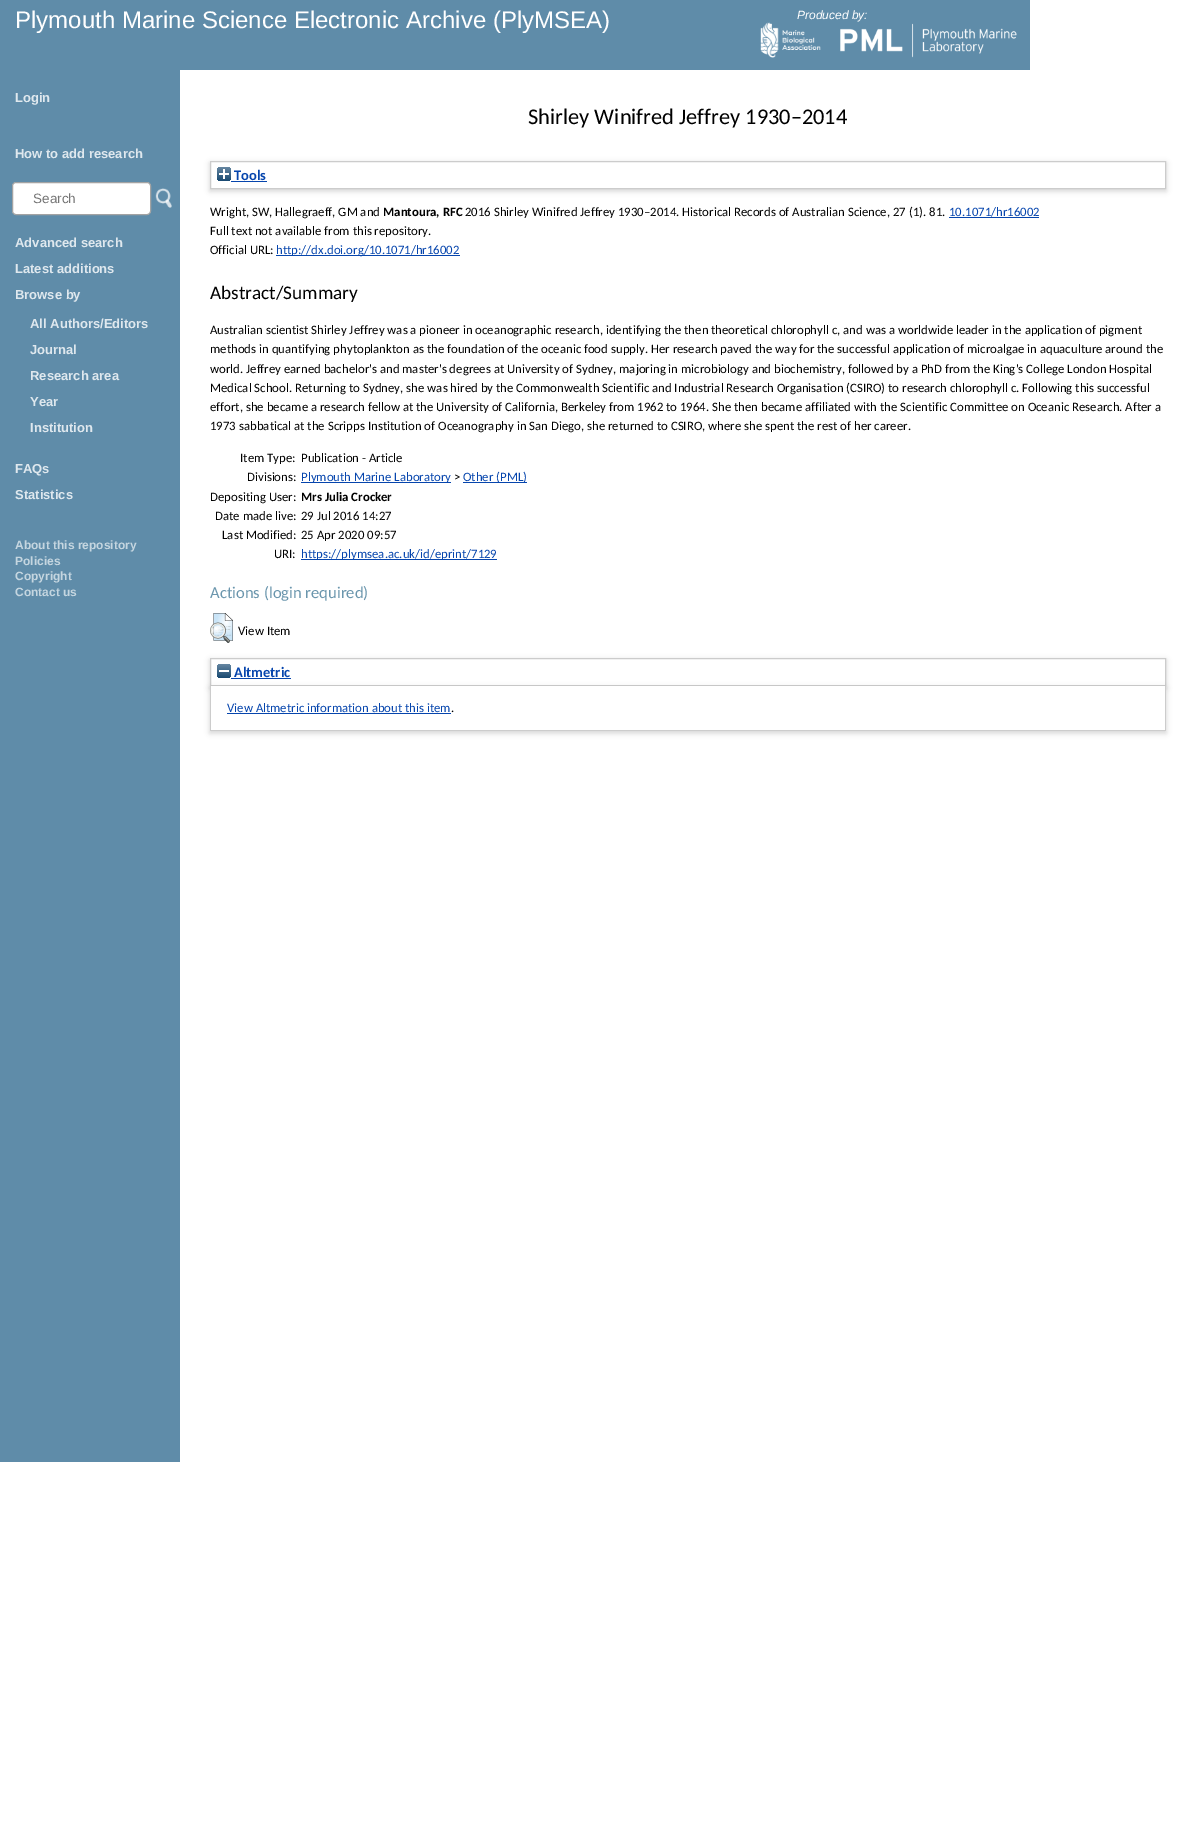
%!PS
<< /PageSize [1196 1826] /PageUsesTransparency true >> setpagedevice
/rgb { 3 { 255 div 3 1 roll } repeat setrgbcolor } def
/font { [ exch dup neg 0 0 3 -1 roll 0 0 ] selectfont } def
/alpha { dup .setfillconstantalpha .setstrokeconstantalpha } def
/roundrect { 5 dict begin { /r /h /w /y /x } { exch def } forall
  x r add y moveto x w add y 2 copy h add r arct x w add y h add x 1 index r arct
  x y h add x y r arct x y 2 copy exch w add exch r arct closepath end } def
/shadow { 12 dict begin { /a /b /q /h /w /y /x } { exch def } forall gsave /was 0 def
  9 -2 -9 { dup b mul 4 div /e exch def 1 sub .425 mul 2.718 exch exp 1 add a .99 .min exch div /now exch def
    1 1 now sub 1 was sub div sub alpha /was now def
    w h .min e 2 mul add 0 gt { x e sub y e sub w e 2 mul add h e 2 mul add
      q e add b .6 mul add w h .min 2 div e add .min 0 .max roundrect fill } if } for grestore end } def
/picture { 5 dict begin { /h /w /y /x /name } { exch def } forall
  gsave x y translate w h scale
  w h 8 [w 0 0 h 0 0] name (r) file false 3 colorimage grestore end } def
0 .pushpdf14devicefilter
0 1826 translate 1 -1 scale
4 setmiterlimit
255 255 255 rgb
0 0 1196 1826 rectfill
95 140 169 rgb
0 0 1030 70 rectfill
(img/1.rgb) 760 22 61 36 picture
(img/2.rgb) 840 23 177 35 picture
0 70 180 1392 rectfill
255 255 255 rgb
12.5 182.5 138 32 3.5 roundrect gsave fill grestore
163 163 163 rgb
stroke
(img/3.rgb) 155 188 17 20 picture
gsave
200 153 moveto 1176 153 lineto 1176 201 lineto 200 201 lineto closepath 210 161 moveto 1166 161 lineto 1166 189 lineto 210 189 lineto closepath eoclip newpath
100 100 100 rgb
210 163 956 28 0 3 0.3 shadow
grestore
204 204 204 rgb
210.5 161.5 955 27 rectstroke
(img/4.rgb) 217 167 14 14 picture
[
  [231 181 36 1 6 69 173]
  [949 217 90 1 6 69 173]
  [276 255 184 1 6 69 173]
  [301 482 150 1 6 69 173]
  [463 482 64 1 6 69 173]
  [301 559 196 1 6 69 173]
] { aload pop rgb rectfill } forall
(img/5.rgb) 210 613 23 30 picture
gsave
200 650 moveto 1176 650 lineto 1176 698 lineto 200 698 lineto closepath 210 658 moveto 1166 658 lineto 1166 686 lineto 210 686 lineto closepath eoclip newpath
100 100 100 rgb
210 660 956 28 0 3 0.3 shadow
grestore
204 204 204 rgb
210.5 658.5 955 27 rectstroke
(img/6.rgb) 217 664 14 14 picture
100 100 100 rgb
210 688 956 45 0 3 0.3 shadow
[
  [231 678 60 1 6 69 173]
  [211 686 954 44 255 255 255]
  [1165 686 1 45 204 204 204]
  [210 730 956 1 204 204 204]
  [210 686 1 45 204 204 204]
  [227 713 224 1 6 69 173]
] { aload pop rgb rectfill } forall
/LiberationSans-Regular 24 font
255 255 255 rgb
15 28 moveto (Plymouth Marine Science Electronic Archive \(PlyMSEA\)) show
/LiberationSans-Italic 12 font
797 19 moveto (Produced by:) show
/LiberationSans-Bold 13 font
223 232 238 rgb
15 102 moveto (Login) show
15 158 moveto (How to add research) show
/LiberationSans-Regular 13.5 font
117 117 117 rgb
33 203 moveto (Search) show
/LiberationSans-Bold 13 font
223 232 238 rgb
[
  [(Advanced search) 15 247]
  [(Latest additions) 15 273]
  [(Browse by) 15 299]
  [(All Authors/Editors) 30 328]
  [(Journal) 30 354]
  [(Research area) 30 380]
  [(Year) 30 406]
  [(Institution) 30 432]
  [(FAQs) 15 473]
  [(Statistics) 15 499]
] { aload pop moveto show } forall
/LiberationSans-Bold 12 font
197 214 224 rgb
[
  [(About this repository) 15 549]
  [(Policies) 15 565]
  [(Copyright) 15 580]
  [(Contact us) 15 596]
] { aload pop moveto show } forall
/Carlito-Regular 22.4 font
0 0 0 rgb
528 124 moveto (Shirley Winifred Jeffrey 1930–2014) show
/Carlito-Bold 14.5 font
6 69 173 rgb
234 180 moveto (Tools) show
/Carlito-Regular 12.8 font
0 0 0 rgb
210 216 moveto (Wright, SW, Hallegraeff, GM and) show
/Carlito-Bold 12.8 font
383 216 moveto (Mantoura, RFC) show
/Carlito-Regular 12.8 font
465 216 moveto (2016 Shirley Winifred Jeffrey 1930–2014. Historical Records of Australian Science, 27 \(1\). 81.) show
6 69 173 rgb
949 216 moveto (10.1071/hr16002) show
0 0 0 rgb
210 235 moveto (Full text not available from this repository.) show
210 254 moveto (Official URL:) show
6 69 173 rgb
276 254 moveto (http://dx.doi.org/10.1071/hr16002) show
/Carlito-Regular 19.25 font
0 0 0 rgb
210 299 moveto (Abstract/Summary) show
/Carlito-Regular 12.8 font
[
  [(Australian scientist Shirley Jeffrey was a pioneer in oceanographic research, identifying the then theoretical chlorophyll c, and was a worldwide leader in the application of pigment) 210 334]
  [(methods in quantifying phytoplankton as the foundation of the oceanic food supply. Her research paved the way for the successful application of microalgae in aquaculture around the) 210 353]
  [(world. Jeffrey earned bachelor's and master's degrees at University of Sydney, majoring in microbiology and biochemistry, followed by a PhD from the King's College London Hospital) 210 373]
  [(Medical School. Returning to Sydney, she was hired by the Commonwealth Scientific and Industrial Research Organisation \(CSIRO\) to research chlorophyll c. Following this successful) 210 392]
  [(effort, she became a research fellow at the University of California, Berkeley from 1962 to 1964. She then became affiliated with the Scientific Committee on Oceanic Research. After a) 210 411]
  [(1973 sabbatical at the Scripps Institution of Oceanography in San Diego, she returned to CSIRO, where she spent the rest of her career.) 210 430]
  [(Item Type:) 240 462]
  [(Publication - Article) 301 462]
  [(Divisions:) 247 481]
] { aload pop moveto show } forall
6 69 173 rgb
301 481 moveto (Plymouth Marine Laboratory) show
0 0 0 rgb
454 481 moveto (>) show
6 69 173 rgb
463 481 moveto (Other \(PML\)) show
0 0 0 rgb
210 501 moveto (Depositing User:) show
/Carlito-Bold 12.8 font
301 501 moveto (Mrs Julia Crocker) show
/Carlito-Regular 12.8 font
[
  [(Date made live:) 215 520]
  [(29 Jul 2016 14:27) 301 520]
  [(Last Modified:) 222 539]
  [(25 Apr 2020 09:57) 301 539]
  [(URI:) 274 558]
] { aload pop moveto show } forall
6 69 173 rgb
301 558 moveto (https://plymsea.ac.uk/id/eprint/7129) show
/Carlito-Regular 16.6 font
107 150 173 rgb
210 598 moveto (Actions \(login required\)) show
/Carlito-Regular 12.8 font
0 0 0 rgb
238 635 moveto (View Item) show
/Carlito-Bold 14.5 font
6 69 173 rgb
234 677 moveto (Altmetric) show
/Carlito-Regular 12.8 font
227 712 moveto (View Altmetric information about this item) show
0 0 0 rgb
451 712 moveto (.) show
.poppdf14devicefilter showpage
